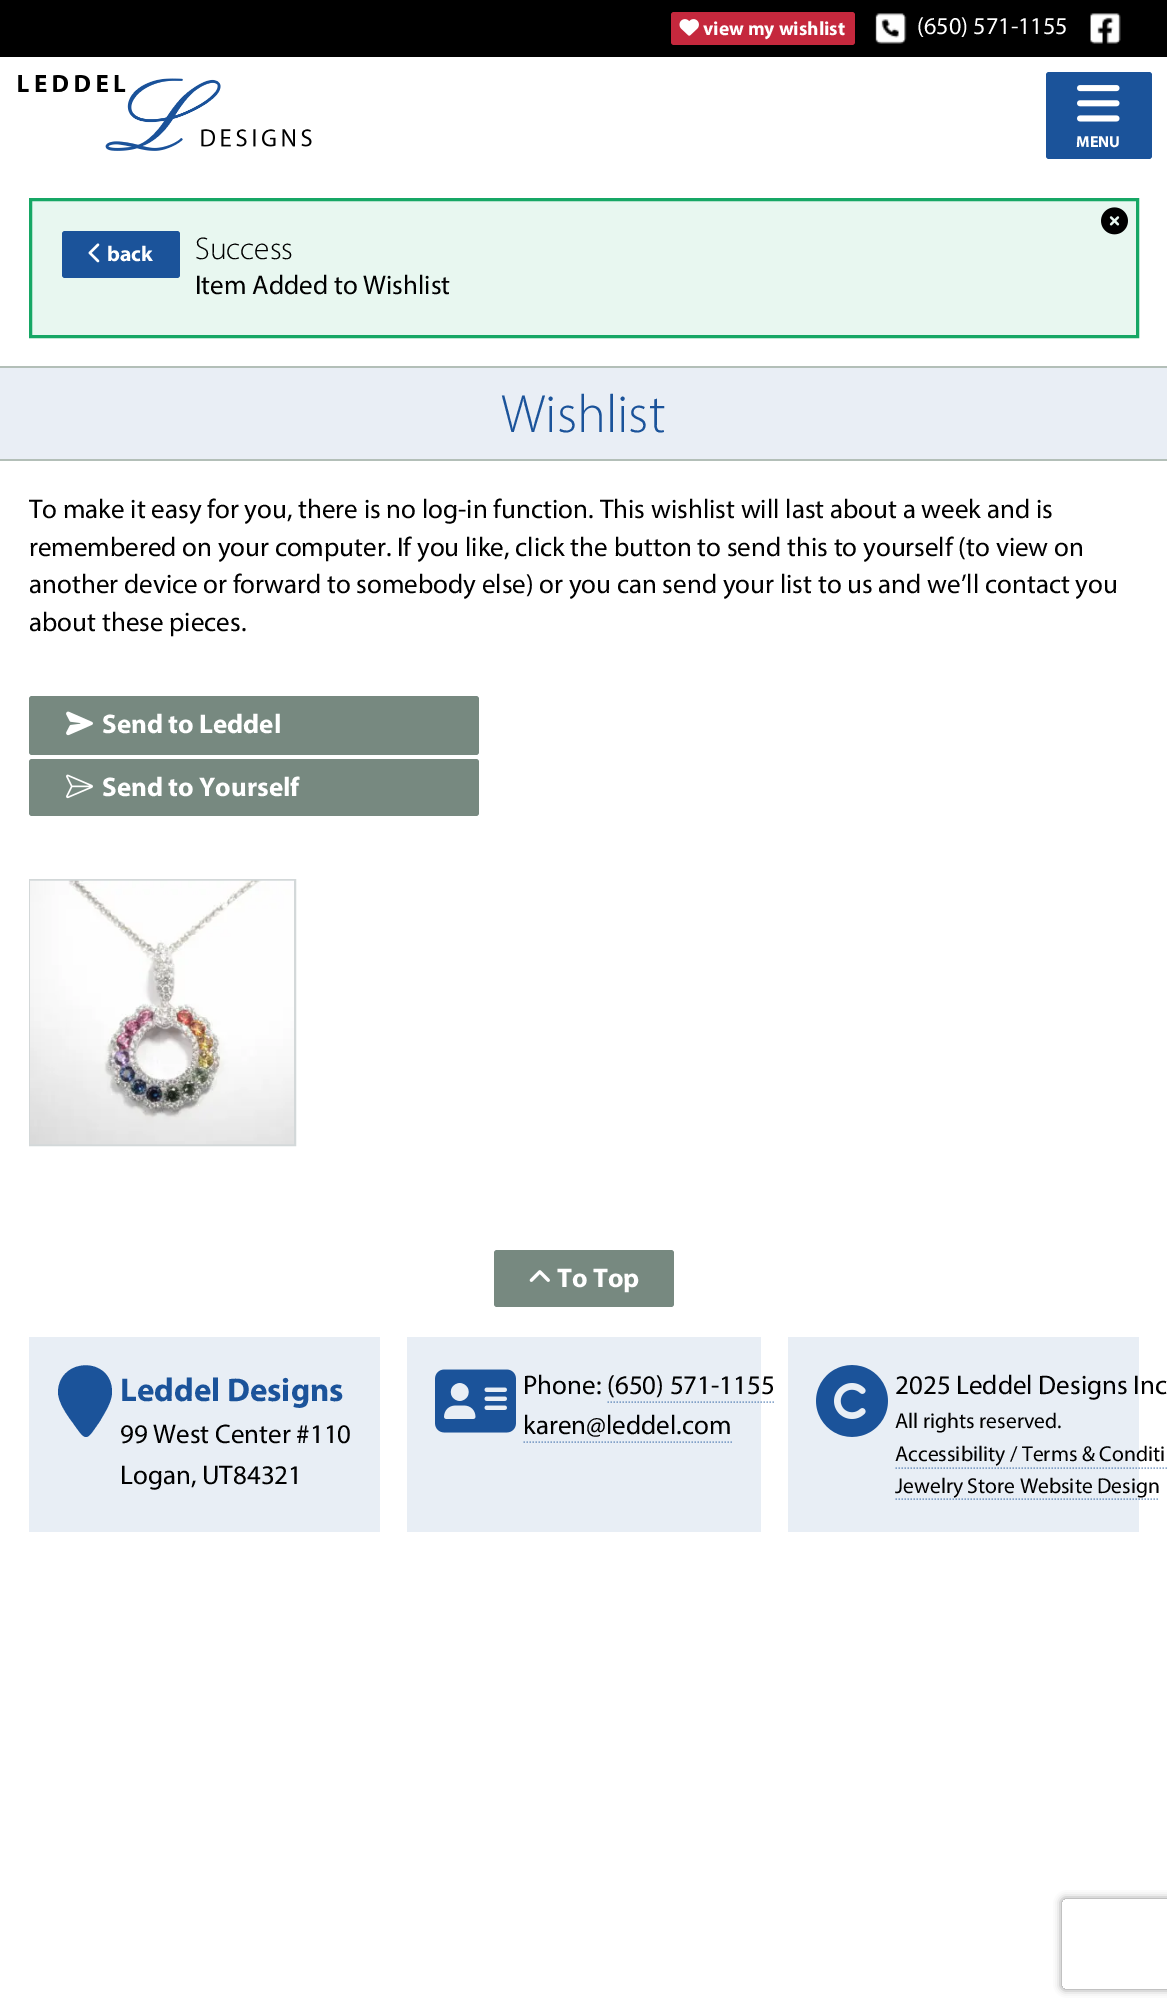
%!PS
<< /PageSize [1167 2010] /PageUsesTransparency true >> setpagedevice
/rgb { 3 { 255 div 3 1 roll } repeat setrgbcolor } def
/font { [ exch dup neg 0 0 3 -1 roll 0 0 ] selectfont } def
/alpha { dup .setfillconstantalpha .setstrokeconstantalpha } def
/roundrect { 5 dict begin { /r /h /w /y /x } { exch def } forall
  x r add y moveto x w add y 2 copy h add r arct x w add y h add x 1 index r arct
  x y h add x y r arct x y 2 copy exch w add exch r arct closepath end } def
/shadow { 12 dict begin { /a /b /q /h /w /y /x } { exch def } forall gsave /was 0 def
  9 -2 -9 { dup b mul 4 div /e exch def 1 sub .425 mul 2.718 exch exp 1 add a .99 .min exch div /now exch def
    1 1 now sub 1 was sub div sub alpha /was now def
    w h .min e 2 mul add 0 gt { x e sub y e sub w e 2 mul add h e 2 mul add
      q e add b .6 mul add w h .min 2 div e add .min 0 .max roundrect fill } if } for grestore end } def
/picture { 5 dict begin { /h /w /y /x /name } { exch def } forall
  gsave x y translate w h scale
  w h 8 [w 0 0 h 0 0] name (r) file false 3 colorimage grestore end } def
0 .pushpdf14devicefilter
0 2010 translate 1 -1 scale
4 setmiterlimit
255 255 255 rgb
0 0 1167 2010 rectfill
179 191 184 rgb
0 366 1167 2 rectfill
0 0 0 rgb
0 0 1167 57 rectfill
197 40 61 rgb
671 12 184 33 3 roundrect fill
(img/1.rgb) 679 19 20 17 picture
(img/2.rgb) 875 13 32 31 picture
(img/3.rgb) 1090 13 31 31 picture
(img/4.rgb) 18 75 294 76 picture
27 83 154 rgb
1046 72 106 87 3 roundrect fill
(img/5.rgb) 1077 85 43 37 picture
232 247 240 rgb
30.5 199.5 moveto 1137.5 199.5 lineto 1137.5 336.5 lineto 30.5 336.5 lineto closepath gsave fill grestore
22 167 101 rgb
3 setlinewidth
stroke
(img/6.rgb) 1101 207 27 28 picture
27 83 154 rgb
62 231 118 47 3 roundrect fill
(img/7.rgb) 88 243 12 20 picture
233 238 245 rgb
0 368 1167 91 rectfill
179 191 184 rgb
0 459 1167 2 rectfill
119 137 128 rgb
29 696 450 59 3 roundrect fill
(img/8.rgb) 66 711 27 25 picture
29 759 450 57 3 roundrect fill
(img/9.rgb) 66 774 27 25 picture
211 216 217 rgb
2 setlinewidth
30 880 265 265 rectstroke
(img/10.rgb) 30 880 264 265 picture
119 137 128 rgb
494 1250 180 57 3 roundrect fill
(img/11.rgb) 529 1270 21 12 picture
232 238 245 rgb
29 1337 351 195 rectfill
27 83 154 rgb
112 1392 moveto 112 1402 105 1412 100 1421 curveto 86 1441 87 1443 73 1423 curveto 67 1415 58 1402 58 1392 curveto 59 1357 112 1356 112 1392 curveto closepath fill
232 238 245 rgb
407 1337 354 195 rectfill
(img/12.rgb) 435 1369 81 64 picture
0.5 alpha
27 83 154 rgb
1.5 setlinewidth
[1.5 1.5] 0 setdash
607.5 1402 moveto 775.5 1402 lineto stroke
1 alpha
130 161 200 rgb
523.5 1442 moveto 732 1442 lineto stroke
232 238 245 rgb
788 1337 351 195 rectfill
(img/13.rgb) 816 1365 72 72 picture
0.5 alpha
27 83 154 rgb
895.5 1468 moveto 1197 1468 lineto stroke
895.5 1499 moveto 1159.5 1499 lineto stroke
gsave
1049 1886 moveto 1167 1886 lineto 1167 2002 lineto 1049 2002 lineto closepath 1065 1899 moveto 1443 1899 lineto 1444.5 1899 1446 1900.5 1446 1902 curveto 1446 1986 lineto 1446 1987.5 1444.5 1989 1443 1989 curveto 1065 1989 lineto 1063.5 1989 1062 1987.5 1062 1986 curveto 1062 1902 lineto 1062 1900.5 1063.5 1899 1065 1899 curveto closepath eoclip newpath
1 alpha
128 128 128 rgb
1062 1899 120 90 3 4 1 shadow
grestore
/Myriad-Bold 19.5 font
1 alpha
255 255 255 rgb
703 35 moveto (view my wishlist) show
/Myriad-Regular 24.25 font
917 34 moveto (\(650\) 571-1155) show
/Myriad-Bold 16 font
1076 147 moveto (MENU) show
/Myriad-Bold 21.6 font
107 261 moveto (back) show
/Myriad-Light 31.5 font
0 0 0 rgb
195 259 moveto (Success) show
/Myriad-Regular 27 font
195 294 moveto (Item Added to Wishlist) show
/Myriad-Light 54 font
27 83 154 rgb
501 432 moveto (Wishlist) show
/Myriad-Regular 27 font
0 0 0 rgb
[
  [(To make it easy for you, there is no log-in function. This wishlist will last about a week and is) 29 518]
  [(remembered on your computer. If you like, click the button to send this to yourself \(to view on) 29 556]
  [(another device or forward to somebody else\) or you can send your list to us and we’ll contact you) 29 593]
  [(about these pieces.) 29 631]
] { aload pop moveto show } forall
/Myriad-Bold 27 font
255 255 255 rgb
[
  [(Send to Leddel) 102 733]
  [(Send to Yourself) 102 796]
  [(To Top) 557 1287]
] { aload pop moveto show } forall
/Myriad-Bold 33 font
27 83 154 rgb
120 1401 moveto (Leddel Designs) show
/Myriad-Regular 27 font
0 0 0 rgb
[
  [(99 West Center #110) 120 1443]
  [(Logan, UT84321) 120 1484]
  [(Phone: \(650\) 571-1155) 523 1394]
  [(karen@leddel.com) 523 1434]
  [(2025 Leddel Designs Inc) 895 1394]
] { aload pop moveto show } forall
/Myriad-Regular 21.6 font
[
  [(All rights reserved.) 895 1428]
  [(Accessibility / Terms & Conditi) 895 1461]
  [(Jewelry Store Website Design) 895 1493]
] { aload pop moveto show } forall
.poppdf14devicefilter showpage
